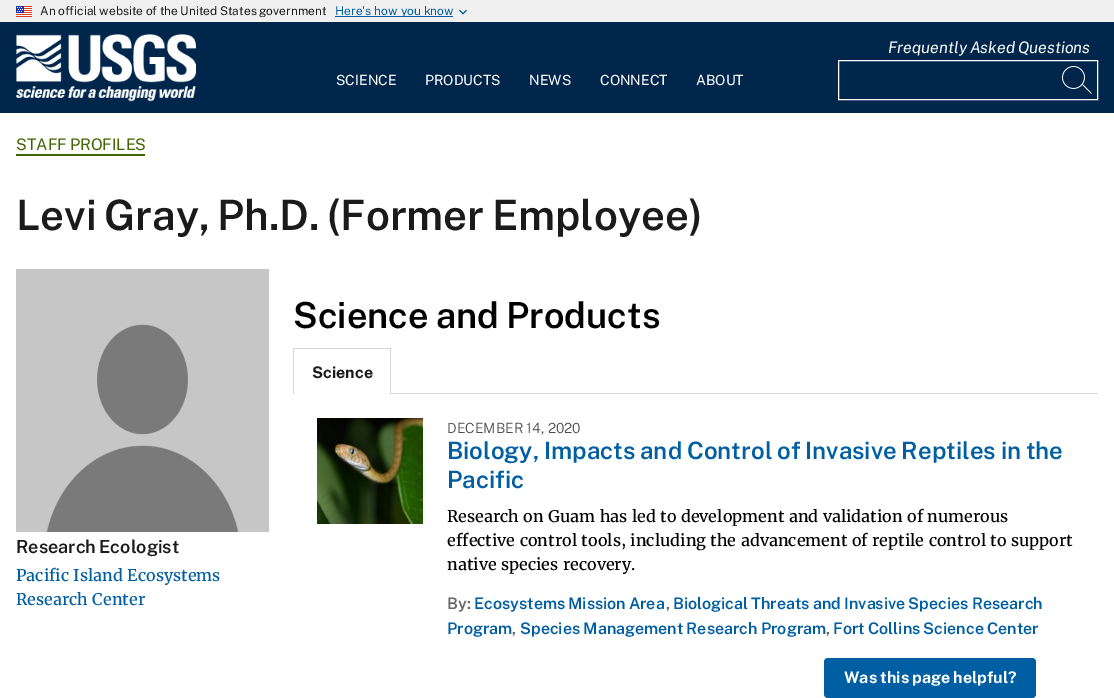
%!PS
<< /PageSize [1114 698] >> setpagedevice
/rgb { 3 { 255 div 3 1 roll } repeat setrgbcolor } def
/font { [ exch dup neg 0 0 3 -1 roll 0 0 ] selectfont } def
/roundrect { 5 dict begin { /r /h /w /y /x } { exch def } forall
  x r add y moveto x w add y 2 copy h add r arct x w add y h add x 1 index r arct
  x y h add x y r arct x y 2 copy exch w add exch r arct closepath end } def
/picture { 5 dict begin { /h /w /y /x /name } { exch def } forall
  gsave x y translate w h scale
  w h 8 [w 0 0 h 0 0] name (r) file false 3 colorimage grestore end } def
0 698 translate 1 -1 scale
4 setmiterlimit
255 255 255 rgb
0 0 1114 698 rectfill
240 240 240 rgb
0 0 1114 22 rectfill
(img/1.rgb) 16 6 16 11 picture
0 94 162 rgb
335 16 118 1 rectfill
(img/2.rgb) 459 9 8 6 picture
0 38 76 rgb
0 22 1114 91 rectfill
(img/3.rgb) 16 34 180 68 picture
255 255 255 rgb
838.5 60.5 259 39 rectstroke
(img/4.rgb) 1062 66 30 28 picture
68 97 0 rgb
16 154 129 2 rectfill
(img/5.rgb) 16 269 253 263 picture
[
  [391 393 707 1 214 215 217]
  [293 348 98 1 214 215 217]
  [390 348 1 46 214 215 217]
  [293 348 1 46 214 215 217]
] { aload pop rgb rectfill } forall
(img/6.rgb) 317 418 106 106 picture
0 94 162 rgb
824 658 212 40 4 roundrect fill
/PublicSans-Regular 12 font
27 27 27 rgb
40 15 moveto -0.5 0 32 (An official website of the United States government) widthshow
0 94 162 rgb
335 15 moveto (Here's how you know) show
/PublicSans-Italic 16 font
255 255 255 rgb
888 53 moveto -1 0 32 (Frequently Asked Questions) widthshow
/PublicSans-Regular 14 font
[
  [(SCIENCE) 336 85]
  [(PRODUCTS) 425 85]
  [(NEWS) 529 85]
  [(CONNECT) 600 85]
  [(ABOUT) 696 85]
] { aload pop moveto show } forall
/PublicSans-Regular 16 font
68 97 0 rgb
16 150 moveto -1 0 32 (STAFF PROFILES) widthshow
/PublicSans-SemiBold 42 font
27 27 27 rgb
16 230 moveto -2.5 0 32 (Levi Gray, Ph.D. \(Former Employee\)) widthshow
/PublicSans-SemiBold 18 font
16 553 moveto -1 0 32 (Research Ecologist) widthshow
/Merriweather-Regular 16 font
0 94 162 rgb
16 581 moveto (Pacific Island Ecosystems) show
16 605 moveto (Research Center) show
/PublicSans-SemiBold 36 font
0 0 0 rgb
293 328 moveto -1 0 32 (Science and Products) widthshow
/PublicSans-Bold 16 font
27 27 27 rgb
312 378 moveto (Science) show
/PublicSans-Light 14 font
77 77 77 rgb
447 433 moveto (DECEMBER 14, 2020) show
/PublicSans-SemiBold 24 font
0 94 162 rgb
447 459 moveto -0.75 0 32 (Biology, Impacts and Control of Invasive Reptiles in the) widthshow
447 488 moveto (Pacific) show
/Merriweather-Regular 16 font
0 0 0 rgb
[
  [(Research on Guam has led to development and validation of numerous) 447 522]
  [(effective control tools, including the advancement of reptile control to support) 447 546]
  [(native species recovery.) 447 570]
] { aload pop moveto show } forall
/PublicSans-SemiBold 16 font
102 102 102 rgb
447 609 moveto (By:) show
0 94 162 rgb
474 609 moveto -1 0 32 (Ecosystems Mission Area) widthshow
102 102 102 rgb
666 609 moveto (,) show
0 94 162 rgb
673 609 moveto -0.5 0 32 (Biological Threats and Invasive Species Research) widthshow
447 634 moveto (Program) show
102 102 102 rgb
512 634 moveto (,) show
0 94 162 rgb
520 634 moveto -0.5 0 32 (Species Management Research Program) widthshow
102 102 102 rgb
826 634 moveto (,) show
0 94 162 rgb
833 634 moveto -0.5 0 32 (Fort Collins Science Center) widthshow
/PublicSans-Bold 16 font
255 255 255 rgb
844 683 moveto -0.5 0 32 (Was this page helpful?) widthshow
showpage
